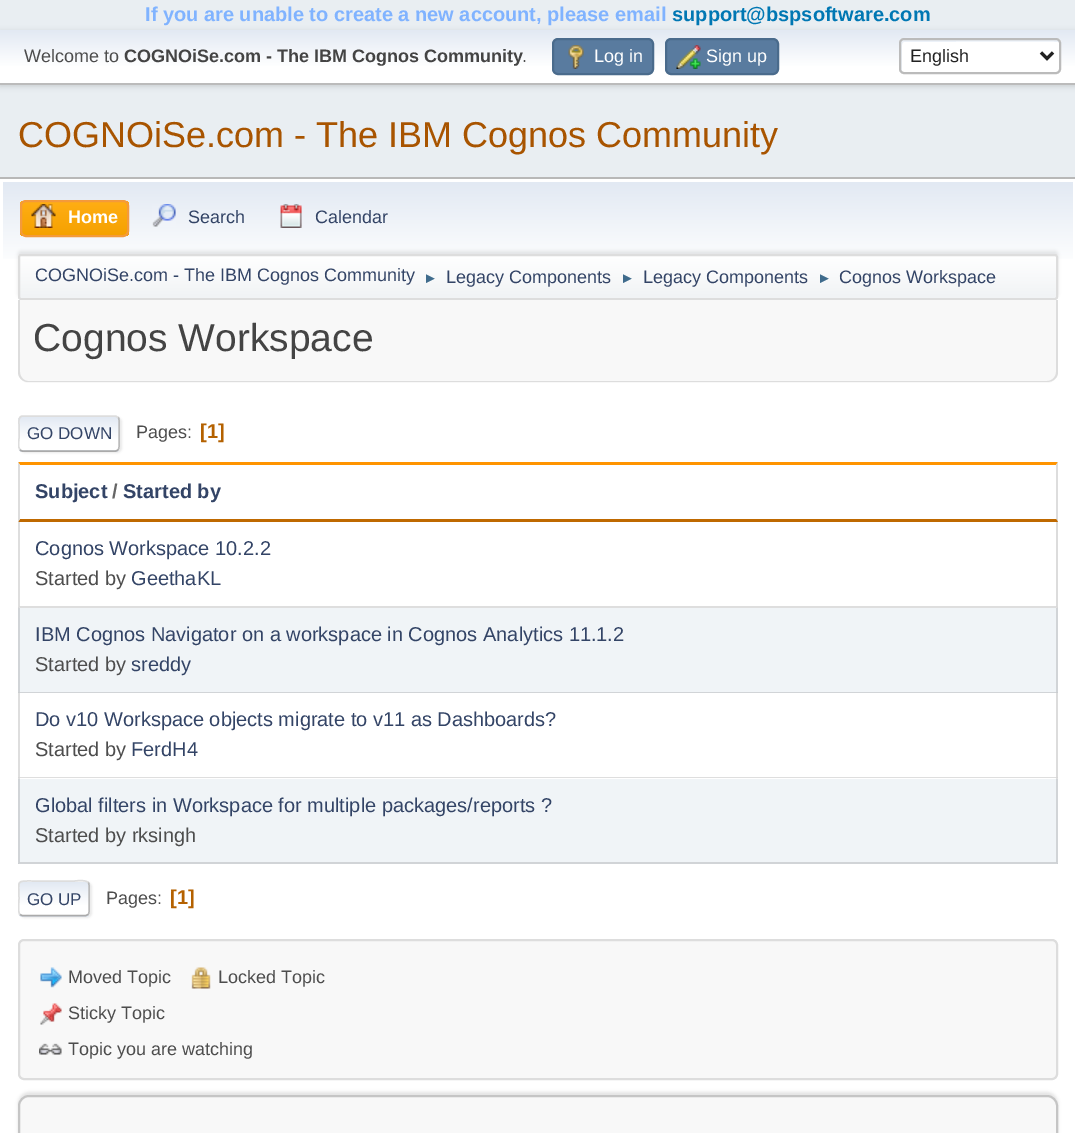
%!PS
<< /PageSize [1075 1133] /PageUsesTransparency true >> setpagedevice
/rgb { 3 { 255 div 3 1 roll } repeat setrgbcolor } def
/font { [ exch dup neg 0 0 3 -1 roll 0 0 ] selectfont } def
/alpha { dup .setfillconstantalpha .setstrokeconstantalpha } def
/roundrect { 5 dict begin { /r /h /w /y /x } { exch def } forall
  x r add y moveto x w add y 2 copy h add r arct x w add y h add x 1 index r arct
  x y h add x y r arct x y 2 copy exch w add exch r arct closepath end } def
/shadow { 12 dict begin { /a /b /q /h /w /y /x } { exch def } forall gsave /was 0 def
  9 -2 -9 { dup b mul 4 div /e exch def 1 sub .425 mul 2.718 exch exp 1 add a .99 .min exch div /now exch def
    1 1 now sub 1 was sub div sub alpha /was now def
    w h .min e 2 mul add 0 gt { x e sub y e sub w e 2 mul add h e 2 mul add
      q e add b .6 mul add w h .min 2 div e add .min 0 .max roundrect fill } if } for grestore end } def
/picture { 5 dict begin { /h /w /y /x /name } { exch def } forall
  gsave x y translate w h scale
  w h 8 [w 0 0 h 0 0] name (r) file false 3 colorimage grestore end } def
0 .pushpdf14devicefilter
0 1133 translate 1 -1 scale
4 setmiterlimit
233 238 242 rgb
0 0 1075 1133 rectfill
0 0 0 rgb
0 32 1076 54 0 3 0.16 shadow
gsave 0 30 moveto 1075 30 lineto 1075 83 lineto 0 83 lineto closepath clip newpath
<< /ShadingType 2 /ColorSpace /DeviceRGB /Coords [538 30 538 83] /Extend [true true] /Function << /FunctionType 3 /Domain [0 1] /Functions [<< /FunctionType 2 /Domain [0 1] /C0 [0.886 0.914 0.953] /C1 [1 1 1] /N 1 >> << /FunctionType 2 /Domain [0 1] /C0 [1 1 1] /C1 [1 1 1] /N 1 >>] /Bounds [0.7] /Encode [0 1 0 1] >> >> shfill grestore
187 187 187 rgb
0 83 1075 2 rectfill
89 123 159 rgb
553 39 100 35 5 roundrect gsave fill grestore
74 107 140 rgb
2 setlinewidth
stroke
(img/1.rgb) 568 45 16 24 picture
89 123 159 rgb
666 39 112 35 5 roundrect gsave fill grestore
74 107 140 rgb
stroke
(img/2.rgb) 676 45 25 24 picture
255 255 255 rgb
899 38 162 36 5 roundrect fill
236 241 248 rgb
904 42 moveto 918 42 1058 41 1059 42 curveto 1058 40 lineto 1056 39 lineto 928 39 lineto 928 39 900 34 900 42 curveto 900 60 lineto 900 62 898 71 902 72 curveto 902 45 lineto 902 43 903 42 904 42 curveto closepath fill
187 187 187 rgb
900 39 160 34 4 roundrect stroke
34 34 34 rgb
3 setlinewidth
1041 52.5 moveto 1047 58.5 lineto 1053 52.5 lineto stroke
255 255 255 rgb
0 179 1075 954 rectfill
184 184 184 rgb
0 177 1075 2 rectfill
gsave 3 182 moveto 1073 182 lineto 1073 259 lineto 3 259 lineto closepath clip newpath
<< /ShadingType 2 /ColorSpace /DeviceRGB /Coords [538 181 538 303] /Extend [true true] /Function << /FunctionType 3 /Domain [0 1] /Functions [<< /FunctionType 2 /Domain [0 1] /C0 [0.886 0.914 0.953] /C1 [1 1 1] /N 1 >> << /FunctionType 2 /Domain [0 1] /C0 [1 1 1] /C1 [1 1 1] /N 1 >>] /Bounds [0.7] /Encode [0 1 0 1] >> >> shfill grestore
gsave
20 200 109 37 6 roundrect clip newpath
gsave 20 201 moveto 129 201 lineto 129 236 lineto 20 236 lineto closepath clip newpath
<< /ShadingType 2 /ColorSpace /DeviceRGB /Coords [74 201 74 236] /Extend [true true] /Function << /FunctionType 2 /Domain [0 1] /C0 [1 0.682 0.078] /C1 [0.961 0.631 0] /N 1 >> >> shfill grestore
grestore
244 154 58 rgb
2 setlinewidth
21 201 107 35 5 roundrect stroke
(img/3.rgb) 31 204 25 24 picture
(img/4.rgb) 152 204 24 23 picture
(img/5.rgb) 280 204 22 24 picture
0 0 0 rgb
18 251 1040 46 3 1.5 0.08 shadow
gsave
18 254 1040 46 3 roundrect clip newpath
gsave 18 255 moveto 1058 255 lineto 1058 299 lineto 18 299 lineto closepath clip newpath
<< /ShadingType 2 /ColorSpace /DeviceRGB /Coords [538 255 538 299] /Extend [true true] /Function << /FunctionType 3 /Domain [0 1] /Functions [<< /FunctionType 2 /Domain [0 1] /C0 [1 1 1] /C1 [0.945 0.953 0.961] /N 1 >> << /FunctionType 2 /Domain [0 1] /C0 [0.945 0.953 0.961] /C1 [0.945 0.953 0.961] /N 1 >>] /Bounds [0.95] /Encode [0 1 0 1] >> >> shfill grestore
grestore
221 221 221 rgb
19 255 1038 44 2 roundrect stroke
248 248 248 rgb
18 300 moveto 1058 300 lineto 1058 372 lineto 1058 378 1053 383 1047 383 curveto 29 383 lineto 23 383 18 378 18 372 curveto closepath fill
221 221 221 rgb
18 300 moveto 1058 300 lineto 1058 372 lineto 1058 378 1053 382 1047 382 curveto 28 382 lineto 23 382 18 378 18 372 curveto closepath 20 300 moveto 1056 300 lineto 1056 372 lineto 1056 377 1052 381 1047 381 curveto 28 381 lineto 24 381 20 377 20 372 curveto closepath eofill
20 417 102 36 5 1 0.57 shadow
gsave
18 416 102 36 5 roundrect clip newpath
gsave 18 417 moveto 120 417 lineto 120 450 lineto 18 450 lineto closepath clip newpath
<< /ShadingType 2 /ColorSpace /DeviceRGB /Coords [69 417 69 450] /Extend [true true] /Function << /FunctionType 3 /Domain [0 1] /Functions [<< /FunctionType 2 /Domain [0 1] /C0 [0.886 0.914 0.953] /C1 [1 1 1] /N 1 >> << /FunctionType 2 /Domain [0 1] /C0 [1 1 1] /C1 [1 1 1] /N 1 >>] /Bounds [0.7] /Encode [0 1 0 1] >> >> shfill grestore
gsave 18 450 moveto 120 450 lineto 120 452 lineto 18 452 lineto closepath clip newpath
<< /ShadingType 2 /ColorSpace /DeviceRGB /Coords [69 450 69 483] /Extend [true true] /Function << /FunctionType 3 /Domain [0 1] /Functions [<< /FunctionType 2 /Domain [0 1] /C0 [0.886 0.914 0.953] /C1 [1 1 1] /N 1 >> << /FunctionType 2 /Domain [0 1] /C0 [1 1 1] /C1 [1 1 1] /N 1 >>] /Bounds [0.7] /Encode [0 1 0 1] >> >> shfill grestore
grestore
187 187 187 rgb
1.5 setlinewidth
118 417.5 moveto 119 418 119 419 119 420 curveto 119 447 lineto 119 448 119 449 118 449.5 curveto stroke
170 170 170 rgb
118 449.5 moveto 117.5 450.5 116.5 451 115.5 451 curveto 22.5 451 lineto 21.5 451 20.5 450.5 20 449.5 curveto stroke
gsave
18 405 1040 57 rectclip
221 221 221 rgb
20 449.5 moveto 17.5 447 19 441 19 438 curveto 19 424.5 lineto 19 421.5 18 416.5 22.5 416 curveto 115.5 416 lineto 118 417.5 lineto stroke
grestore
255 148 0 rgb
18 462 moveto 1058 462 lineto 1056 465 lineto 20 465 lineto closepath fill
221 221 221 rgb
1058 462 moveto 1058 522 lineto 1056 519 lineto 1056 465 lineto closepath fill
191 105 0 rgb
1058 522 moveto 18 522 lineto 20 519 lineto 1056 519 lineto closepath fill
221 221 221 rgb
18 522 moveto 18 462 lineto 20 465 lineto 20 519 lineto closepath fill
220 220 220 rgb
1058 522 moveto 1058 608 lineto 1056 606 lineto 1056 522 lineto closepath fill
0.13 alpha
0 0 0 rgb
1058 608 moveto 18 608 lineto 20 606 lineto 1056 606 lineto closepath fill
18 608 moveto 18 522 lineto 20 522 lineto 20 606 lineto closepath fill
1 alpha
240 244 247 rgb
18 608 1040 85 rectfill
209 212 215 rgb
1058 608 moveto 1058 693 lineto 1056 692 lineto 1056 608 lineto closepath fill
0.13 alpha
0 0 0 rgb
1058 693 moveto 18 693 lineto 20 692 lineto 1056 692 lineto closepath fill
18 693 moveto 18 608 lineto 20 608 lineto 20 692 lineto closepath fill
1 alpha
220 220 220 rgb
1058 693 moveto 1058 778 lineto 1056 777 lineto 1056 693 lineto closepath fill
0.13 alpha
0 0 0 rgb
1058 778 moveto 18 778 lineto 20 777 lineto 1056 777 lineto closepath fill
18 778 moveto 18 693 lineto 20 693 lineto 20 777 lineto closepath fill
1 alpha
240 244 247 rgb
18 779 1040 85 rectfill
0.13 alpha
0 0 0 rgb
1058 778 moveto 1058 864 lineto 1056 862 lineto 1056 778 lineto closepath fill
1058 864 moveto 18 864 lineto 20 862 lineto 1056 862 lineto closepath fill
18 864 moveto 18 778 lineto 20 778 lineto 20 862 lineto closepath fill
1 alpha
221 221 221 rgb
20 882 72 36 5 1 0.57 shadow
255 255 255 rgb
18 881 72 36 5 roundrect fill
gsave
18 881 72 36 5 roundrect clip newpath
gsave 18 882 moveto 90 882 lineto 90 915 lineto 18 915 lineto closepath clip newpath
<< /ShadingType 2 /ColorSpace /DeviceRGB /Coords [54 882 54 915] /Extend [true true] /Function << /FunctionType 3 /Domain [0 1] /Functions [<< /FunctionType 2 /Domain [0 1] /C0 [0.886 0.914 0.953] /C1 [1 1 1] /N 1 >> << /FunctionType 2 /Domain [0 1] /C0 [1 1 1] /C1 [1 1 1] /N 1 >>] /Bounds [0.7] /Encode [0 1 0 1] >> >> shfill grestore
gsave 18 915 moveto 90 915 lineto 90 917 lineto 18 917 lineto closepath clip newpath
<< /ShadingType 2 /ColorSpace /DeviceRGB /Coords [54 915 54 948] /Extend [true true] /Function << /FunctionType 3 /Domain [0 1] /Functions [<< /FunctionType 2 /Domain [0 1] /C0 [0.886 0.914 0.953] /C1 [1 1 1] /N 1 >> << /FunctionType 2 /Domain [0 1] /C0 [1 1 1] /C1 [1 1 1] /N 1 >>] /Bounds [0.7] /Encode [0 1 0 1] >> >> shfill grestore
grestore
187 187 187 rgb
88 882.5 moveto 89 883 89 884 89 885 curveto 89 912 lineto 89 913 89 914 88 914.5 curveto stroke
170 170 170 rgb
88 914.5 moveto 86 915.5 lineto 22 915.5 lineto 20 914.5 lineto stroke
gsave
18 870 1040 57 rectclip
221 221 221 rgb
20 914.5 moveto 17.5 912.5 19 901.5 19 898.5 curveto 19 880 15.5 881 33 881 curveto 75 881 lineto 75 881 85.5 879.5 88 882.5 curveto stroke
grestore
248 248 248 rgb
19 940 1038 139 5 roundrect gsave fill grestore
221 221 221 rgb
2 setlinewidth
stroke
(img/6.rgb) 191 967 20 22 picture
(img/7.rgb) 40 1003 22 22 picture
(img/8.rgb) 39 1043 23 12 picture
(img/9.rgb) 40 967 22 21 picture
0 0 0 rgb
18 1092 1040 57 11 1.5 0.1 shadow
248 248 248 rgb
19 1096 1038 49 10 roundrect gsave fill grestore
197 197 197 rgb
stroke
/LiberationSans-Bold 20 font
128 179 255 rgb
145 21 moveto (If you are unable to create a new account, please email) show
0 119 179 rgb
672 21 moveto (support@bspsoftware.com) show
/LiberationSans-Regular 18 font
77 77 77 rgb
24 62 moveto (Welcome to) show
/LiberationSans-Bold 18 font
68 68 68 rgb
124 62 moveto (COGNOiSe.com - The IBM Cognos Community) show
/LiberationSans-Regular 18 font
77 77 77 rgb
522 62 moveto (.) show
255 255 255 rgb
594 62 moveto (Log in) show
706 62 moveto (Sign up) show
34 34 34 rgb
910 62 moveto (English) show
/LiberationSans-Regular 36 font
168 84 0 rgb
18 147 moveto (COGNOiSe.com - The IBM Cognos Community) show
/LiberationSans-Bold 18 font
255 255 255 rgb
68 223 moveto (Home) show
/LiberationSans-Regular 18 font
51 68 102 rgb
[
  [(Search) 188 223]
  [(Calendar) 315 223]
  [(COGNOiSe.com - The IBM Cognos Community) 35 281]
] { aload pop moveto show } forall
/LiberationSans-Regular 15 font
63 107 140 rgb
423 283 moveto (►) show
/LiberationSans-Regular 18 font
51 68 102 rgb
446 283 moveto (Legacy Components) show
/LiberationSans-Regular 15 font
63 107 140 rgb
620 283 moveto (►) show
/LiberationSans-Regular 18 font
51 68 102 rgb
643 283 moveto (Legacy Components) show
/LiberationSans-Regular 15 font
63 107 140 rgb
817 283 moveto (►) show
/LiberationSans-Regular 18 font
51 68 102 rgb
839 283 moveto (Cognos Workspace) show
/LiberationSans-Regular 39 font
68 68 68 rgb
33 351 moveto (Cognos Workspace) show
/LiberationSans-Regular 17 font
51 68 102 rgb
27 439 moveto (GO DOWN) show
/LiberationSans-Regular 18 font
77 77 77 rgb
136 438 moveto (Pages:) show
/LiberationSans-Bold 20 font
180 97 0 rgb
200 438 moveto ([1]) show
51 68 102 rgb
35 498 moveto (Subject) show
102 102 102 rgb
112 498 moveto (/) show
51 68 102 rgb
123 498 moveto (Started by) show
/LiberationSans-Regular 20 font
35 555 moveto (Cognos Workspace 10.2.2) show
77 77 77 rgb
35 585 moveto (Started by) show
51 68 102 rgb
131 585 moveto (GeethaKL) show
35 641 moveto (IBM Cognos Navigator on a workspace in Cognos Analytics 11.1.2) show
77 77 77 rgb
35 671 moveto (Started by) show
51 68 102 rgb
131 671 moveto (sreddy) show
35 726 moveto (Do v10 Workspace objects migrate to v11 as Dashboards?) show
77 77 77 rgb
35 756 moveto (Started by) show
51 68 102 rgb
131 756 moveto (FerdH4) show
35 812 moveto (Global filters in Workspace for multiple packages/reports ?) show
77 77 77 rgb
35 842 moveto (Started by rksingh) show
/LiberationSans-Regular 17 font
51 68 102 rgb
27 905 moveto (GO UP) show
/LiberationSans-Regular 18 font
77 77 77 rgb
106 904 moveto (Pages:) show
/LiberationSans-Bold 20 font
180 97 0 rgb
170 904 moveto ([1]) show
/LiberationSans-Regular 18 font
77 77 77 rgb
[
  [(Locked Topic) 218 983]
  [(Sticky Topic) 68 1019]
  [(Topic you are watching) 68 1055]
  [(Moved Topic) 68 983]
] { aload pop moveto show } forall
.poppdf14devicefilter showpage
